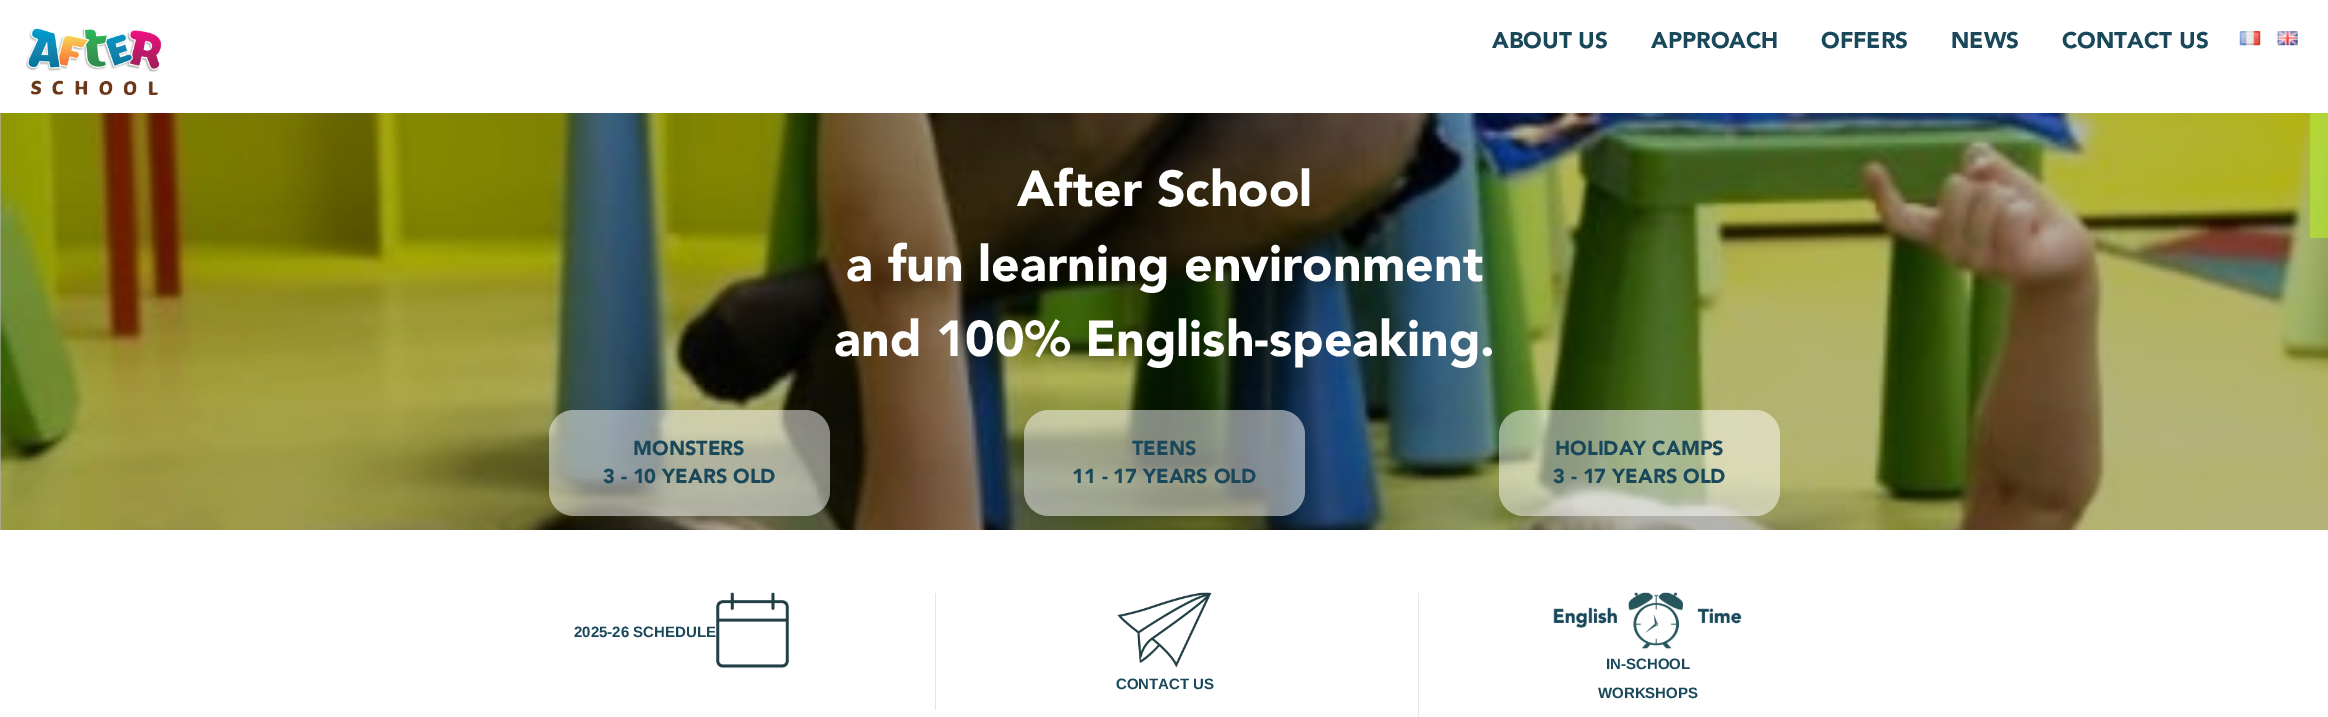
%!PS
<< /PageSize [2328 717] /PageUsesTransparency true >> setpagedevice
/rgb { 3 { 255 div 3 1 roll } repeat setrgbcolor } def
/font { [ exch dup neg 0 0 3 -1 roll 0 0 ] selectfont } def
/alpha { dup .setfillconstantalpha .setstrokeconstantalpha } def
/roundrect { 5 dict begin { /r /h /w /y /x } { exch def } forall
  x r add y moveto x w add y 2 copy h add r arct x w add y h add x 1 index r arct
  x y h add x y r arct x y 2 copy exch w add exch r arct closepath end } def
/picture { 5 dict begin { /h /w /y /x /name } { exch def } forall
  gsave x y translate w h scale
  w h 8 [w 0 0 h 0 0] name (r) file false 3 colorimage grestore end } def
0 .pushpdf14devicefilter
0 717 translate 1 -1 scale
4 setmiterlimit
255 255 255 rgb
0 0 2328 717 rectfill
179 179 179 rgb
0 113 1 417 rectfill
(img/1.rgb) 25 28 137 67 picture
(img/2.rgb) 2239 31 22 15 picture
(img/3.rgb) 2276 31 22 15 picture
(img/4.rgb) 0 113 2328 417 picture
0.5 alpha
255 255 255 rgb
549 410 281 106 25 roundrect fill
1024 410 281 106 25 roundrect fill
1499 410 281 106 25 roundrect fill
0.6 alpha
183 237 36 rgb
2310 113 18 125 rectfill
1 alpha
(img/5.rgb) 716 592 73 76 picture
230 230 230 rgb
935 593 1 117 rectfill
(img/6.rgb) 1117 592 95 76 picture
1418 593 1 124 rectfill
(img/7.rgb) 1553 592 189 57 picture
/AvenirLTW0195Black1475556-Black 22.5 font
26 72 91 rgb
[
  [(ABOUT US) 1492 48]
  [(APPROACH) 1651 48]
  [(OFFERS) 1821 48]
  [(NEWS) 1951 48]
  [(CONTACT US) 2062 48]
] { aload pop moveto show } forall
/AvenirLTW0195Black1475556-Black 50 font
255 255 255 rgb
[
  [(After School) 1017 206]
  [(a fun learning environment) 846 281]
  [(and 100% English-speaking.) 834 356]
] { aload pop moveto show } forall
/AvenirLTW0195Black1475556-Black 20 font
26 72 91 rgb
[
  [(MONSTERS) 633 455]
  [(3 - 10 YEARS OLD) 603 483]
  [(TEENS) 1132 455]
  [(11 - 17 YEARS OLD) 1072 483]
  [(HOLIDAY CAMPS) 1555 455]
  [(3 - 17 YEARS OLD) 1553 483]
] { aload pop moveto show } forall
/LiberationSans-Bold 15 font
[
  [(2025-26 SCHEDULE) 574 637]
  [(CONTACT US) 1116 689]
  [(IN-SCHOOL) 1606 669]
  [(WORKSHOPS) 1598 698]
] { aload pop moveto show } forall
.poppdf14devicefilter showpage
